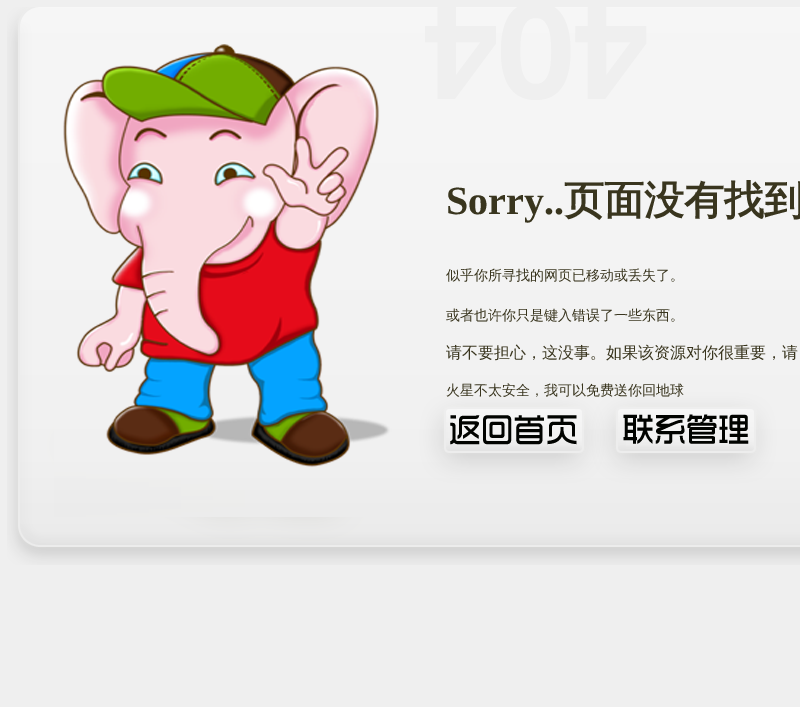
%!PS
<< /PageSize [800 707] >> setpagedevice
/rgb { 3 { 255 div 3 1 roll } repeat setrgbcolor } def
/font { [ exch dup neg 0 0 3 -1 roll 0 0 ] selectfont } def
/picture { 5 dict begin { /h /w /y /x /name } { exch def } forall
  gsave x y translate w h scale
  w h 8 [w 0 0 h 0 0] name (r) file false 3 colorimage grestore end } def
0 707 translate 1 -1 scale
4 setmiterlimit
239 239 239 rgb
0 0 800 707 rectfill
(img/1.rgb) 7 7 793 558 picture
/LiberationSerif-Bold 40 font
57 53 30 rgb
446 214 moveto (Sorry..) show
/WenQuanYiZenHei-Bold 40 font
564 214 moveto (页面没有找到) show
/WenQuanYiZenHei-Medium 14 font
446 280 moveto (似乎你所寻找的网页已移动或丢失了。) show
446 320 moveto (或者也许你只是键入错误了一些东西。) show
/WenQuanYiZenHei-Medium 16 font
446 358 moveto (请不要担心，这没事。如果该资源对你很重要，请) show
/WenQuanYiZenHei-Medium 14 font
446 395 moveto (火星不太安全，我可以免费送你回地球) show
showpage
